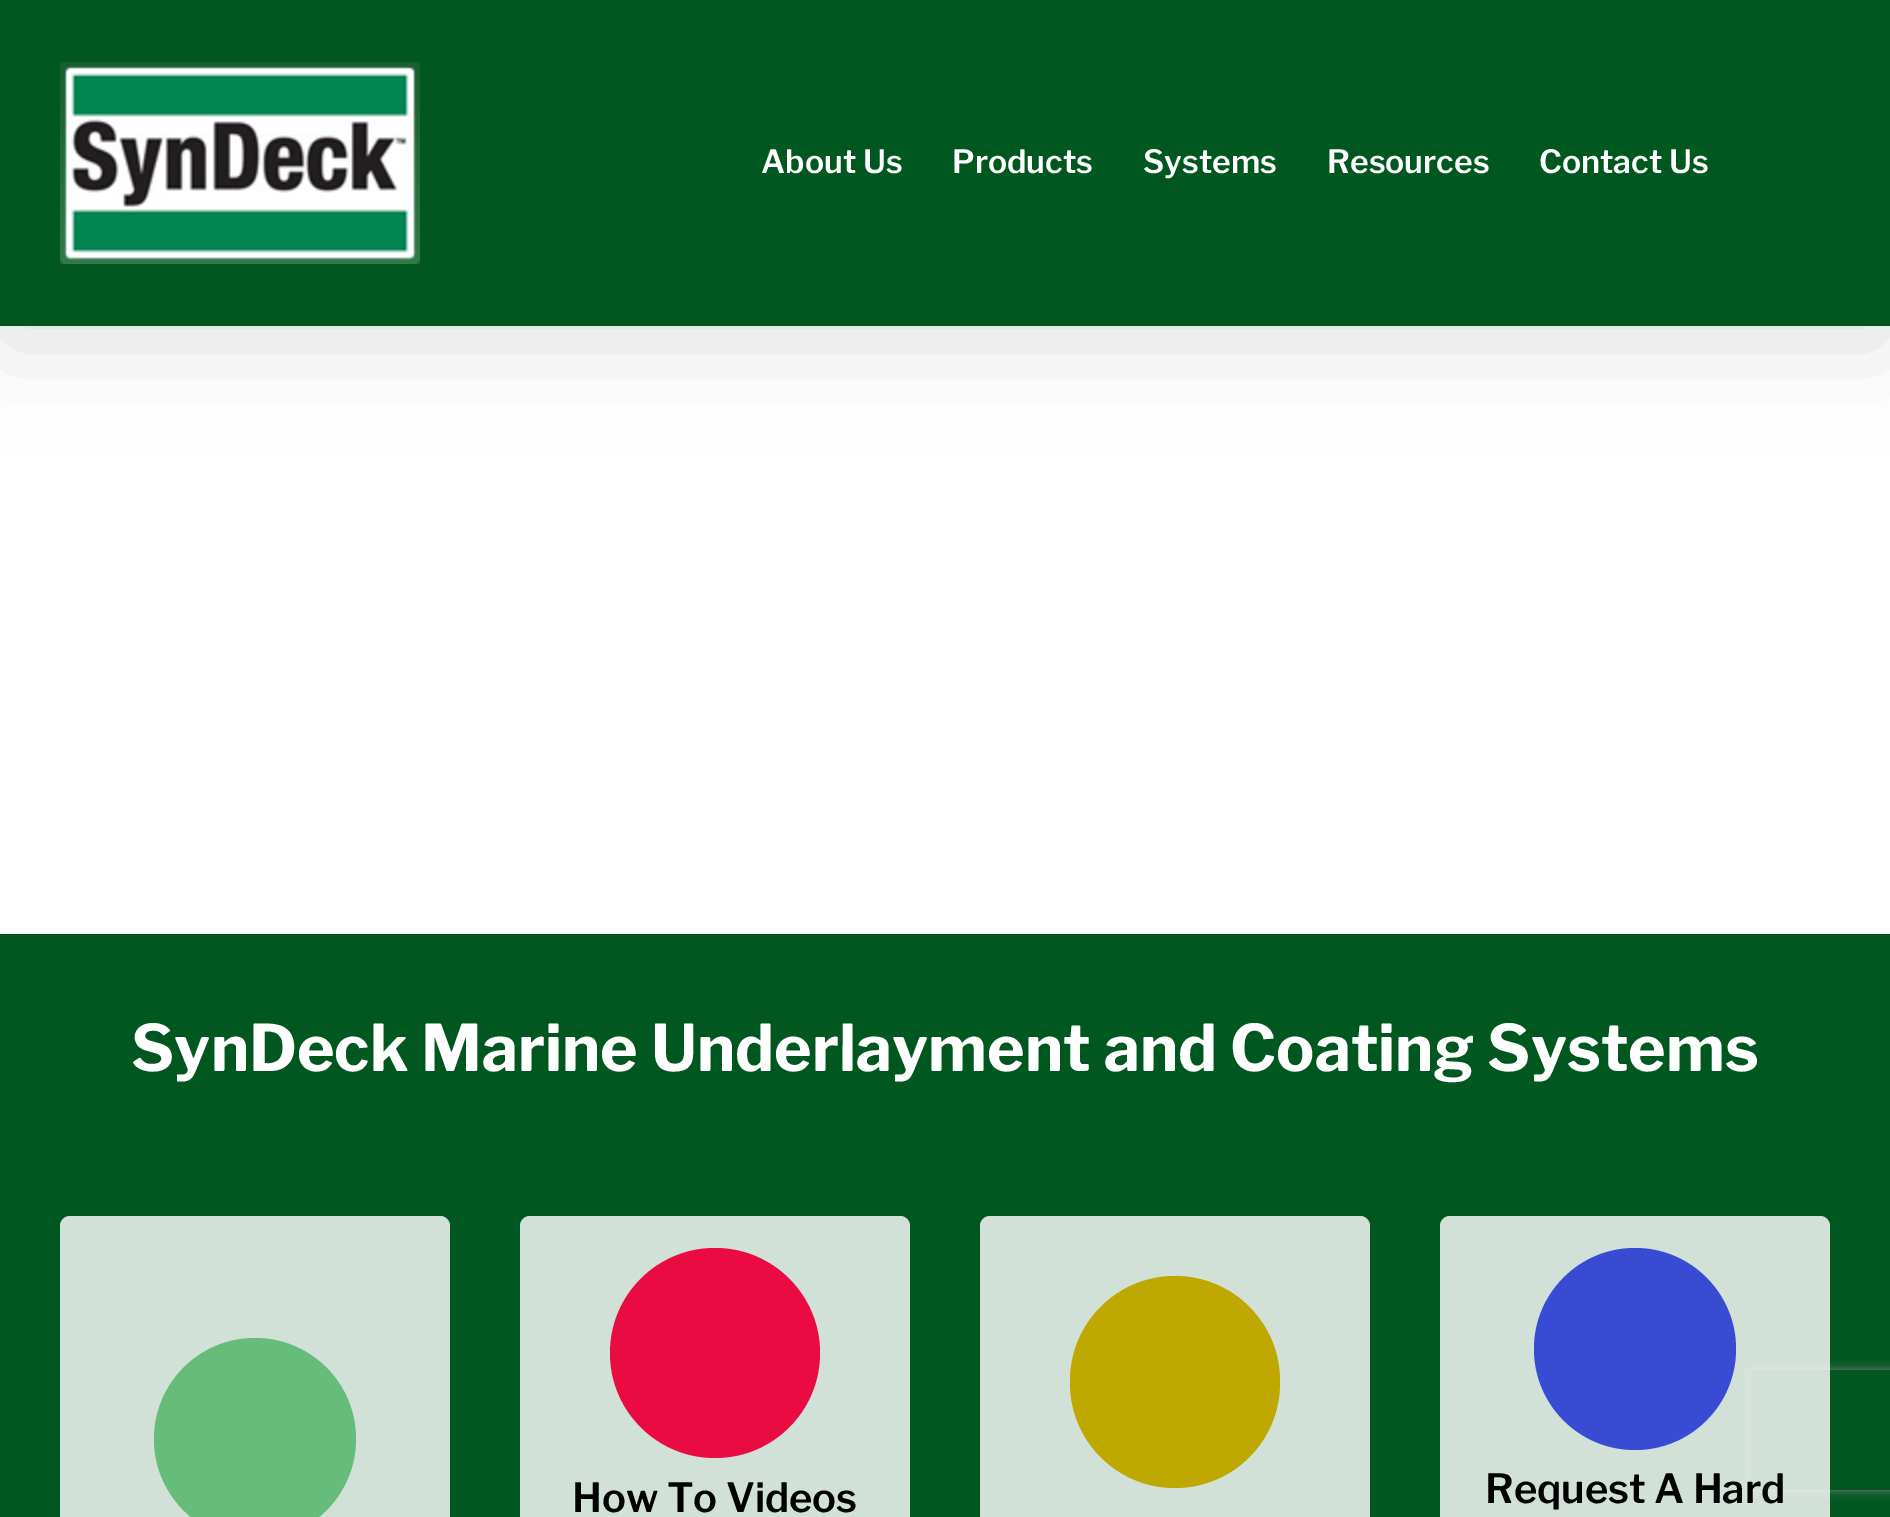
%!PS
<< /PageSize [1890 1517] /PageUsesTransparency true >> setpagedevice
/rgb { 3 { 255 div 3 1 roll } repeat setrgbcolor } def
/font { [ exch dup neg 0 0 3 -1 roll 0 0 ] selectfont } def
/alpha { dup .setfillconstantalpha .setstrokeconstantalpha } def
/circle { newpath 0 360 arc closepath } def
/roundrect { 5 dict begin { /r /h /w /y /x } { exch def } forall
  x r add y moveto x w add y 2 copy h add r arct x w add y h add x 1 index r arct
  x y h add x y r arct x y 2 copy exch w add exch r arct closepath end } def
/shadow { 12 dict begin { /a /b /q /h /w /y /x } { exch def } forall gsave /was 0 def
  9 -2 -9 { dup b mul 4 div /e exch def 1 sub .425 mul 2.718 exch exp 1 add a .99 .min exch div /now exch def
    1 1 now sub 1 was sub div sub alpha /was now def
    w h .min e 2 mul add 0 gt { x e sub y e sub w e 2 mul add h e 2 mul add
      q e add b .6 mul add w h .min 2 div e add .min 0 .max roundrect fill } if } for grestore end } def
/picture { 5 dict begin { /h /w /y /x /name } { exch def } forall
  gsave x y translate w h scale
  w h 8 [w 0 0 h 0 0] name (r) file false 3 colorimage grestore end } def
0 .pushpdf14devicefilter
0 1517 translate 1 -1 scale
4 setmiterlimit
255 255 255 rgb
0 0 1890 1517 rectfill
0 0 0 rgb
4 24 1882 318 0 50 0.14 shadow
0 87 32 rgb
0 0 1890 326 rectfill
(img/1.rgb) 60 62 360 202 picture
0 934 1890 583 rectfill
209 225 215 rgb
60 1216 390 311 10 roundrect fill
101 188 123 rgb
255 1439 101 circle fill
209 225 215 rgb
520 1216 390 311 10 roundrect fill
234 11 67 rgb
715 1353 105 circle fill
209 225 215 rgb
980 1216 390 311 10 roundrect fill
191 169 1 rgb
1070 1276 210 212 105 roundrect fill
gsave
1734 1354 moveto 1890 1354 lineto 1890 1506 lineto 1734 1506 lineto closepath 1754 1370 moveto 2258 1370 lineto 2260 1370 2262 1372 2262 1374 curveto 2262 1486 lineto 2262 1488 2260 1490 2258 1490 curveto 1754 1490 lineto 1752 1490 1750 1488 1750 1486 curveto 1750 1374 lineto 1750 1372 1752 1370 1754 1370 curveto closepath eoclip newpath
128 128 128 rgb
1750 1370 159 120 4 5 1 shadow
grestore
0.82 alpha
255 255 255 rgb
1440 1216 390 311 10 roundrect fill
1 alpha
57 75 211 rgb
1635 1349 101 circle fill
/LibreFranklin-SemiBold 32 font
255 255 255 rgb
[
  [(About Us) 761 173]
  [(Products) 952 173]
  [(Systems) 1143 173]
  [(Resources) 1327 173]
  [(Contact Us) 1539 173]
] { aload pop moveto show } forall
/LibreFranklin-Bold 64 font
131 1071 moveto (SynDeck Marine Underlayment and Coating Systems) show
/LibreFranklin-SemiBold 40 font
0 0 0 rgb
572 1512 moveto (How To Videos) show
1485 1503 moveto (Request A Hard) show
.poppdf14devicefilter showpage
